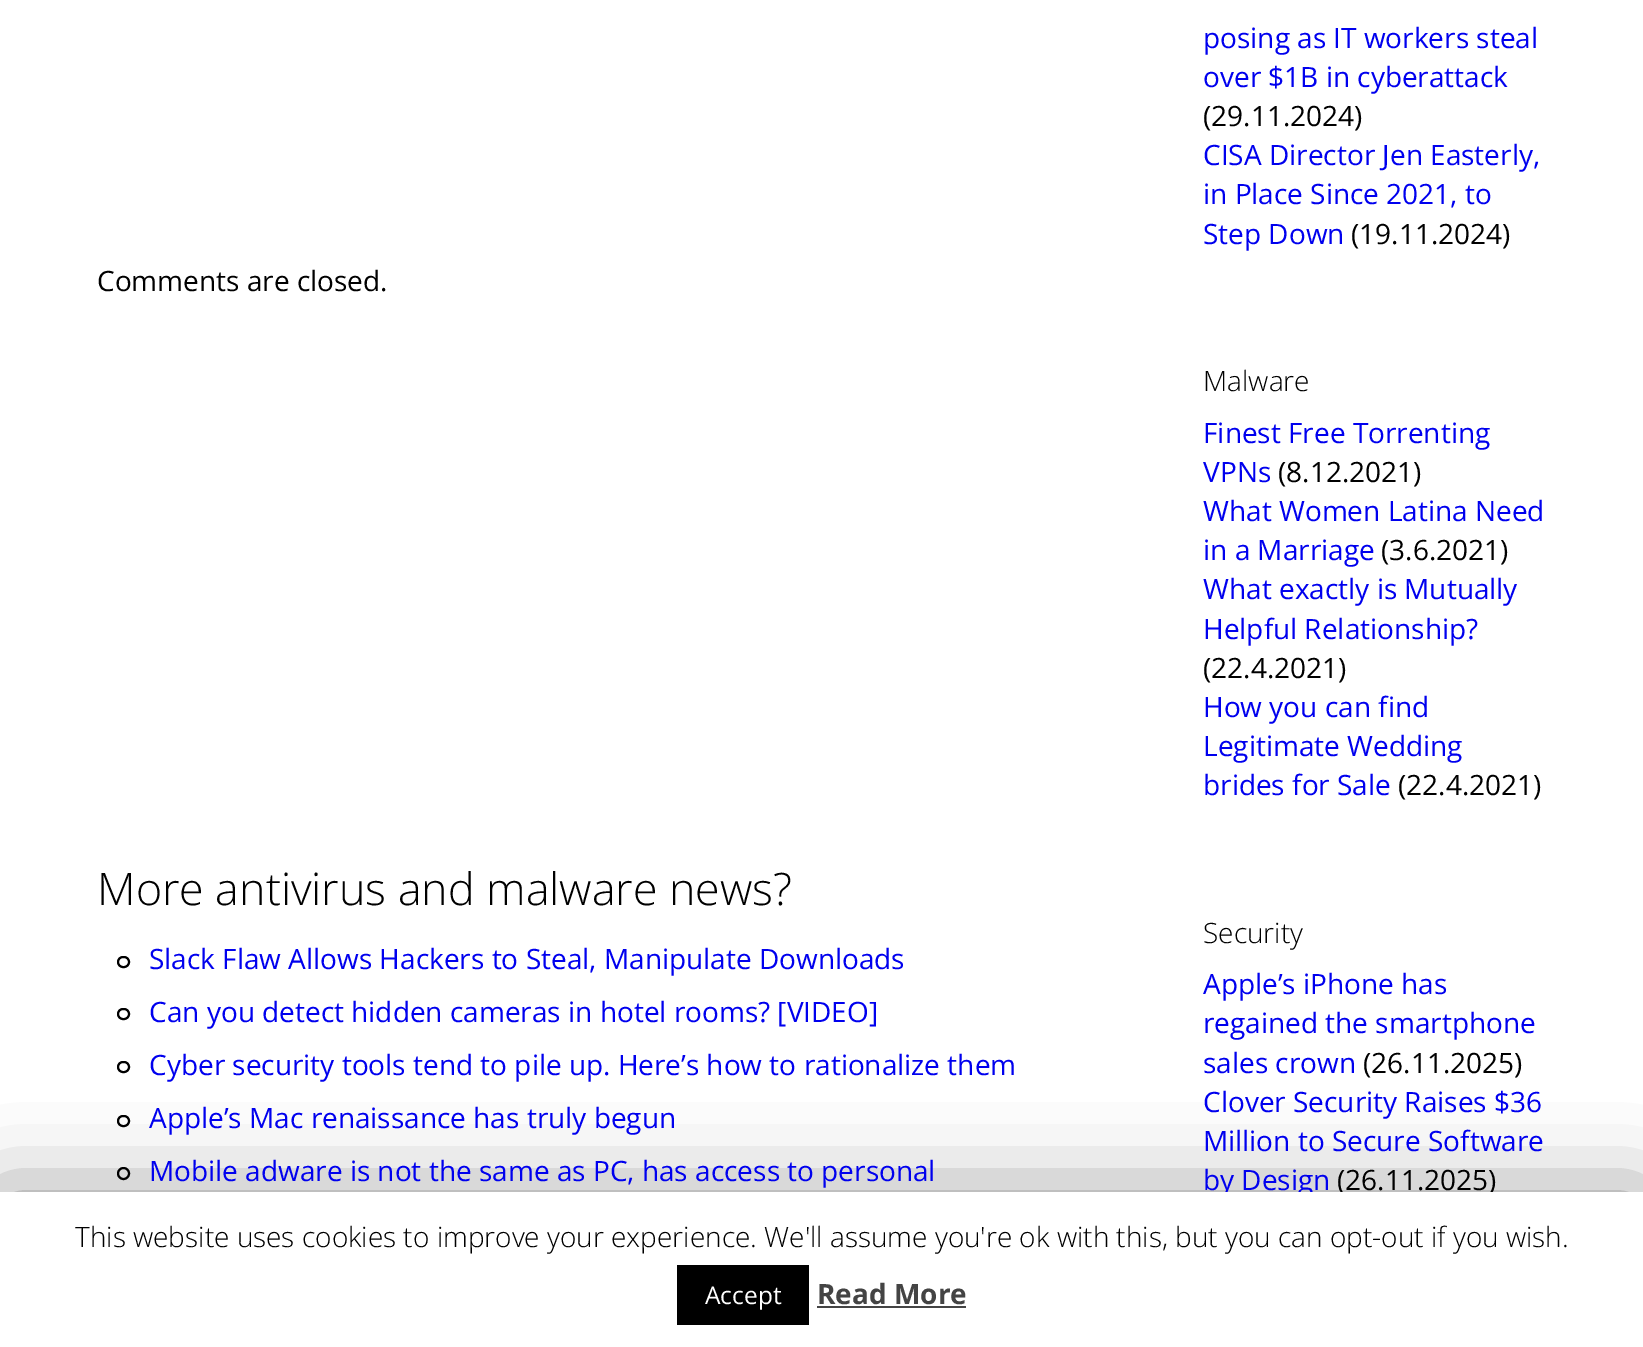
%!PS
<< /PageSize [1643 1347] /PageUsesTransparency true >> setpagedevice
/rgb { 3 { 255 div 3 1 roll } repeat setrgbcolor } def
/font { [ exch dup neg 0 0 3 -1 roll 0 0 ] selectfont } def
/alpha { dup .setfillconstantalpha .setstrokeconstantalpha } def
/circle { newpath 0 360 arc closepath } def
/roundrect { 5 dict begin { /r /h /w /y /x } { exch def } forall
  x r add y moveto x w add y 2 copy h add r arct x w add y h add x 1 index r arct
  x y h add x y r arct x y 2 copy exch w add exch r arct closepath end } def
/shadow { 12 dict begin { /a /b /q /h /w /y /x } { exch def } forall gsave /was 0 def
  9 -2 -9 { dup b mul 4 div /e exch def 1 sub .425 mul 2.718 exch exp 1 add a .99 .min exch div /now exch def
    1 1 now sub 1 was sub div sub alpha /was now def
    w h .min e 2 mul add 0 gt { x e sub y e sub w e 2 mul add h e 2 mul add
      q e add b .6 mul add w h .min 2 div e add .min 0 .max roundrect fill } if } for grestore end } def
0 .pushpdf14devicefilter
0 1347 translate 1 -1 scale
4 setmiterlimit
255 255 255 rgb
0 0 1643 1347 rectfill
0 0 0 rgb
2 setlinewidth
118 957 11 10 5 roundrect stroke
118 1009 11 10 5 roundrect stroke
118 1062 11 10 5 roundrect stroke
118 1116 11 10 5 roundrect stroke
123.5 1173.5 5.5 circle stroke
0 1201 1643 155 0 44 0.5 shadow
/OpenSans-Regular 28 font
97 291 moveto (Comments are closed.) show
/OpenSans-Light 44.75 font
97 905 moveto (More antivirus and malware news?) show
/OpenSans-Regular 28 font
0 0 238 rgb
[
  [(Slack Flaw Allows Hackers to Steal, Manipulate Downloads) 149 969]
  [(Can you detect hidden cameras in hotel rooms? [VIDEO]) 149 1022]
  [(Cyber security tools tend to pile up. Here’s how to rationalize them) 149 1075]
  [(Apple’s Mac renaissance has truly begun) 149 1128]
  [(Mobile adware is not the same as PC, has access to personal) 149 1181]
  [(posing as IT workers steal) 1203 48]
  [(over $1B in cyberattack) 1203 87]
] { aload pop moveto show } forall
0 0 0 rgb
1203 126 moveto (\(29.11.2024\)) show
0 0 238 rgb
[
  [(CISA Director Jen Easterly,) 1203 165]
  [(in Place Since 2021, to) 1203 204]
  [(Step Down) 1203 244]
] { aload pop moveto show } forall
0 0 0 rgb
1351 244 moveto (\(19.11.2024\)) show
/OpenSans-Light 28 font
1203 391 moveto (Malware) show
/OpenSans-Regular 28 font
0 0 238 rgb
1203 443 moveto (Finest Free Torrenting) show
1203 482 moveto (VPNs) show
0 0 0 rgb
1278 482 moveto (\(8.12.2021\)) show
0 0 238 rgb
1203 521 moveto (What Women Latina Need) show
1203 560 moveto (in a Marriage) show
0 0 0 rgb
1381 560 moveto (\(3.6.2021\)) show
0 0 238 rgb
1203 599 moveto (What exactly is Mutually) show
1203 639 moveto (Helpful Relationship?) show
0 0 0 rgb
1203 678 moveto (\(22.4.2021\)) show
0 0 238 rgb
[
  [(How you can find) 1203 717]
  [(Legitimate Wedding) 1203 756]
  [(brides for Sale) 1203 795]
] { aload pop moveto show } forall
0 0 0 rgb
1398 795 moveto (\(22.4.2021\)) show
/OpenSans-Light 28 font
1203 943 moveto (Security) show
/OpenSans-Regular 28 font
0 0 238 rgb
[
  [(Apple’s iPhone has) 1203 994]
  [(regained the smartphone) 1203 1033]
  [(sales crown) 1203 1073]
] { aload pop moveto show } forall
0 0 0 rgb
1363 1073 moveto (\(26.11.2025\)) show
0 0 238 rgb
[
  [(Clover Security Raises $36) 1203 1112]
  [(Million to Secure Software) 1203 1151]
  [(by Design) 1203 1190]
] { aload pop moveto show } forall
0 0 0 rgb
1337 1190 moveto (\(26.11.2025\)) show
255 255 255 rgb
0 1192 1643 155 rectfill
/OpenSans-Light 28 font
0 0 0 rgb
75 1247 moveto (This website uses cookies to improve your experience. We'll assume you're ok with this, but you can opt-out if you wish.) show
677 1265 132 60 rectfill
/OpenSans-Regular 24.5 font
255 255 255 rgb
705 1304 moveto (Accept) show
/OpenSans-Bold 28 font
68 68 68 rgb
817 1304 moveto (Read More) show
817 1306 149 2 rectfill
.poppdf14devicefilter showpage
